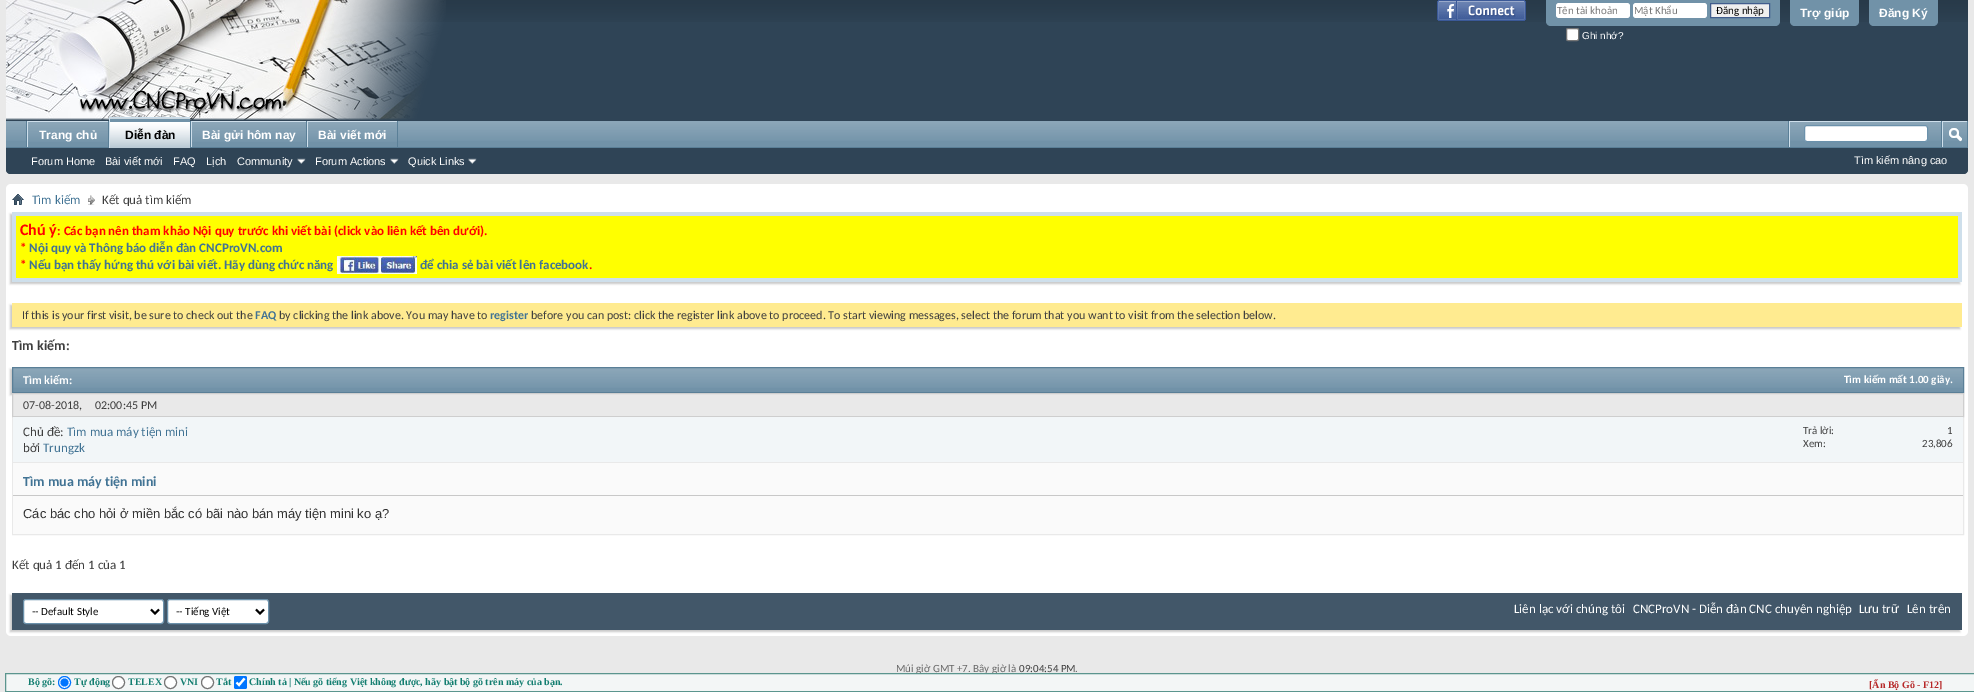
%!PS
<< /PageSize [1974 692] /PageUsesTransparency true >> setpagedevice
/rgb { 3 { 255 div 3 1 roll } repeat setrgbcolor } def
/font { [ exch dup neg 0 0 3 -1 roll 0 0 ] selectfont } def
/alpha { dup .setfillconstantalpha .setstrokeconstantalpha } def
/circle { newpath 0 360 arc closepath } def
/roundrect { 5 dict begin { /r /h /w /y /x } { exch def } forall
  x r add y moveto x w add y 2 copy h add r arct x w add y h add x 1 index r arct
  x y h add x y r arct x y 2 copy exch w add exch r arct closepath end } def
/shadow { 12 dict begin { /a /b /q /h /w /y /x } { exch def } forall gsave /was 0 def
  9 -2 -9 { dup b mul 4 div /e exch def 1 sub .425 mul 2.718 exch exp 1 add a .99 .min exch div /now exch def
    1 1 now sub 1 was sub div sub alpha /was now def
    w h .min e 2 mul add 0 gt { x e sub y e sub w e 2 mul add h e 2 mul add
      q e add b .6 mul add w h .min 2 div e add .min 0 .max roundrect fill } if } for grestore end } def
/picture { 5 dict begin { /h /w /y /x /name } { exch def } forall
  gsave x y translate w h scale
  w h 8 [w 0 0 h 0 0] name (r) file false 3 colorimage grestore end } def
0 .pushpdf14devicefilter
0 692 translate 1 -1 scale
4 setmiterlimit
233 233 233 rgb
0 0 1974 692 rectfill
47 68 86 rgb
6 0 moveto 1968 0 lineto 1968 169 lineto 1968 172 1966 174 1963 174 curveto 11 174 lineto 8 174 6 172 6 169 curveto closepath fill
(img/1.rgb) 328 0 1640 22 picture
(img/2.rgb) 6 0 440 120 picture
(img/3.rgb) 1437 0 89 21 picture
113 146 168 rgb
1546 0 moveto 1780 0 lineto 1780 21 lineto 1780 24 1778 26 1775 26 curveto 1551 26 lineto 1548 26 1546 24 1546 21 curveto closepath fill
255 255 255 rgb
1556 3 74 15 3 roundrect fill
1633 3 74 15 3 roundrect fill
239 239 239 rgb
1710.5 3.5 moveto 1769.5 3.5 lineto 1769.5 17.5 lineto 1710.5 17.5 lineto closepath gsave fill grestore
65 93 141 rgb
stroke
255 255 255 rgb
1566.5 28.5 12 12 1.5 roundrect gsave fill grestore
118 118 118 rgb
stroke
113 146 168 rgb
1790 0 moveto 1859 0 lineto 1859 21 lineto 1859 24 1857 26 1854 26 curveto 1795 26 lineto 1792 26 1790 24 1790 21 curveto closepath fill
1869 0 moveto 1938 0 lineto 1938 21 lineto 1938 24 1936 26 1933 26 curveto 1874 26 lineto 1871 26 1869 24 1869 21 curveto closepath fill
47 68 86 rgb
6 121 moveto 1968 121 lineto 1968 169 lineto 1968 172 1966 174 1963 174 curveto 11 174 lineto 8 174 6 172 6 169 curveto closepath fill
113 146 168 rgb
6 121 1961 26 rectfill
(img/4.rgb) 6 121 1961 20 picture
[
  [108 121 1 27 90 127 151]
  [26 121 1 27 90 127 151]
  [28 122 80 19 113 146 168]
] { aload pop rgb rectfill } forall
(img/5.rgb) 28 122 80 20 picture
[
  [27 121 81 1 206 223 235]
  [27 121 1 27 206 223 235]
  [190 121 1 26 90 127 151]
  [306 121 1 27 90 127 151]
  [191 121 115 1 206 223 235]
  [191 121 1 27 206 223 235]
  [397 121 1 27 90 127 151]
  [307 121 90 1 206 223 235]
  [307 121 1 27 206 223 235]
  [6 147 1962 1 90 127 151]
  [110 118 80 30 113 146 168]
] { aload pop rgb rectfill } forall
(img/6.rgb) 110 118 80 30 picture
[
  [109 117 81 1 206 223 235]
  [109 117 1 31 206 223 235]
  [192 122 114 19 113 146 168]
] { aload pop rgb rectfill } forall
(img/7.rgb) 192 122 114 20 picture
308 122 89 19 rectfill
(img/8.rgb) 308 122 89 20 picture
(img/9.rgb) 297 158 9 6 picture
(img/9.rgb) 390 158 9 6 picture
(img/9.rgb) 468 158 9 6 picture
[
  [1788 121 1 26 90 127 151]
  [1789 121 152 1 206 223 235]
  [1789 121 1 26 206 223 235]
] { aload pop rgb rectfill } forall
255 255 255 rgb
1804.5 125.5 123 16 2.5 roundrect gsave fill grestore
107 145 171 rgb
stroke
[
  [1967 121 1 26 90 127 151]
  [1941 121 1 26 90 127 151]
  [1942 121 25 1 206 223 235]
  [1942 121 1 26 206 223 235]
] { aload pop rgb rectfill } forall
(img/10.rgb) 1949 128 13 14 picture
255 255 255 rgb
6 184 1962 452 5 roundrect fill
(img/11.rgb) 12 194 12 11 picture
(img/12.rgb) 88 195 7 10 picture
200 200 200 rgb
10 214 1950 70 0 1 1 shadow
206 223 235 rgb
12 212 1950 70 rectfill
255 255 0 rgb
16 216 1942 62 rectfill
(img/13.rgb) 337 256 80 18 picture
200 200 200 rgb
10 305 1950 24 0 1 1 shadow
255 235 144 rgb
12 303 1950 24 rectfill
200 200 200 rgb
10 369 1952 26 0 1 1 shadow
113 146 168 rgb
13 368 1950 24 rectfill
(img/14.rgb) 13 368 1950 20 picture
90 127 151 rgb
12.5 367.5 1951 25 rectstroke
233 233 233 rgb
12.5 393.5 1951 141 rectstroke
12.5 393.5 moveto 1963.5 393.5 lineto 1963.5 416.5 lineto 12.5 416.5 lineto closepath gsave fill grestore
206 206 206 rgb
stroke
[
  [13 417 1950 45 242 246 248]
  [13 462 1950 1 233 233 233]
  [13 463 1950 71 250 250 250]
  [13 495 1950 1 200 200 200]
] { aload pop rgb rectfill } forall
10 595 1950 37 0 1 1 shadow
66 87 105 rgb
12 593 1950 37 rectfill
255 255 255 rgb
23.5 599.5 140 24 2.5 roundrect gsave fill grestore
107 145 171 rgb
stroke
0 0 0 rgb
2 setlinewidth
151 609.5 moveto 155 613.5 lineto 159 609.5 lineto stroke
255 255 255 rgb
167.5 599.5 101 24 2.5 roundrect gsave fill grestore
107 145 171 rgb
1 setlinewidth
stroke
0 0 0 rgb
2 setlinewidth
256 609.5 moveto 260 613.5 lineto 264 609.5 lineto stroke
/Carlito-Regular 11 font
119 119 119 rgb
1557 14 moveto (Tên tài khoản) show
1634 14 moveto (Mật Khẩu) show
0 0 0 rgb
1716 14 moveto (Đăng nhập) show
/LiberationSans-Regular 10 font
255 255 255 rgb
1582 39 moveto (Ghi nhớ?) show
/LiberationSans-Bold 12 font
[
  [(Trợ giúp) 1800 17]
  [(Đăng Ký) 1879 17]
  [(Trang chủ) 39 139]
] { aload pop moveto show } forall
0 0 0 rgb
125 139 moveto (Diễn đàn) show
255 255 255 rgb
202 139 moveto (Bài gửi hôm nay) show
318 139 moveto (Bài viết mới) show
/LiberationSans-Regular 11 font
[
  [(Forum Home) 31 165]
  [(Bài viết mới) 105 165]
  [(FAQ) 173 165]
  [(Lịch) 206 165]
  [(Community) 237 165]
  [(Forum Actions) 315 165]
  [(Quick Links) 408 165]
  [(Tìm kiếm nâng cao) 1854 164]
] { aload pop moveto show } forall
/Carlito-Regular 13 font
65 115 148 rgb
32 204 moveto (Tìm kiếm) show
62 62 62 rgb
102 204 moveto (Kết quả tìm kiếm) show
/Carlito-Bold 16 font
255 0 0 rgb
20 235 moveto (Chú ý) show
/Carlito-Bold 13 font
57 235 moveto (: Các bạn nên tham khảo Nội quy trước khi viết bài \(click vào liên kết bên dưới\).) show
20 252 moveto (*) show
65 115 148 rgb
29 252 moveto (Nội quy và Thông báo diễn đàn CNCProVN.com) show
255 0 0 rgb
20 269 moveto (*) show
65 115 148 rgb
29 269 moveto (Nếu bạn thấy hứng thú với bài viết. Hãy dùng chức năng) show
420 269 moveto (để chia sẻ bài viết lên facebook) show
255 0 0 rgb
589 269 moveto (.) show
/Carlito-Regular 12 font
62 62 62 rgb
22 319 moveto (If this is your first visit, be sure to check out the) show
/Carlito-Bold 12 font
65 115 148 rgb
255 319 moveto (FAQ) show
/Carlito-Regular 12 font
62 62 62 rgb
279 319 moveto (by clicking the link above. You may have to) show
/Carlito-Bold 12 font
65 115 148 rgb
490 319 moveto (register) show
/Carlito-Regular 12 font
62 62 62 rgb
531 319 moveto (before you can post: click the register link above to proceed. To start viewing messages, select the forum that you want to visit from the selection below.) show
/Carlito-Bold 14 font
12 350 moveto (Tìm kiếm:) show
/Carlito-Bold 12 font
255 255 255 rgb
23 384 moveto (Tìm kiếm:) show
/Carlito-Bold 11 font
1844 383 moveto (Tìm kiếm mất 1.00 giây.) show
/Carlito-Regular 12 font
62 62 62 rgb
23 409 moveto (07-08-2018,) show
95 409 moveto (02:00:45 PM) show
/Carlito-Regular 13 font
23 436 moveto (Chủ đề:) show
65 115 148 rgb
67 436 moveto (Tìm mua máy tiện mini) show
62 62 62 rgb
23 452 moveto (bởi) show
65 115 148 rgb
43 452 moveto (Trungzk) show
/Carlito-Regular 11 font
62 62 62 rgb
[
  [(Trả lời:) 1803 434]
  [(1) 1947 434]
  [(Xem:) 1803 447]
  [(23,806) 1922 447]
] { aload pop moveto show } forall
/Carlito-Bold 14 font
65 115 148 rgb
23 486 moveto (Tìm mua máy tiện mini) show
/LiberationSans-Regular 13 font
51 51 51 rgb
23 518 moveto (Các bác cho hỏi ở miền bắc có bãi nào bán máy tiện mini ko ạ?) show
/Carlito-Regular 13 font
62 62 62 rgb
12 569 moveto (Kết quả 1 đến 1 của 1) show
/Carlito-Regular 11 font
0 0 0 rgb
32 615 moveto (-- Default Style) show
176 615 moveto (-- Tiếng Việt) show
/Carlito-Regular 13 font
255 255 255 rgb
[
  [(Liên lạc với chúng tôi) 1514 613]
  [(CNCProVN - Diễn đàn CNC chuyên nghiệp) 1633 613]
  [(Lưu trữ) 1859 613]
  [(Lên trên) 1907 613]
] { aload pop moveto show } forall
/Carlito-Regular 11 font
102 102 102 rgb
896 672 moveto (Múi giờ GMT +7. Bây giờ là) show
62 62 62 rgb
1019 672 moveto (09:04:54 PM) show
102 102 102 rgb
1075 672 moveto (.) show
0.75 alpha
247 250 250 rgb
5.5 673.5 moveto 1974.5 673.5 lineto 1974.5 691.5 lineto 5.5 691.5 lineto closepath fill
1 alpha
91 149 142 rgb
1 setlinewidth
5.5 673.5 moveto 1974.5 673.5 lineto 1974.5 691.5 lineto 5.5 691.5 lineto closepath stroke
/LiberationSerif-Bold 10 font
19 126 112 rgb
28 685 moveto (Bộ gõ:) show
255 255 255 rgb
64.5 682.5 6 circle gsave fill grestore
0 117 255 rgb
stroke
64.5 682.5 4 circle fill
19 126 112 rgb
74 685 moveto (Tự động) show
255 255 255 rgb
118.5 682.5 6 circle gsave fill grestore
118 118 118 rgb
stroke
19 126 112 rgb
128 685 moveto (TELEX) show
255 255 255 rgb
170.5 682.5 6 circle gsave fill grestore
118 118 118 rgb
stroke
19 126 112 rgb
180 685 moveto (VNI) show
255 255 255 rgb
207.5 682.5 6 circle gsave fill grestore
118 118 118 rgb
stroke
19 126 112 rgb
216 685 moveto (Tắt) show
0 117 255 rgb
234 676 13 13 2 roundrect fill
255 255 255 rgb
2.1 setlinewidth
236.5 682.5 moveto 239 685 lineto 244.5 678.5 lineto stroke
19 126 112 rgb
249 685 moveto (Chính tả | Nếu gõ tiếng Việt không được, hãy bật bộ gõ trên máy của bạn.) show
182 39 39 rgb
1869 688 moveto ([Ẩn Bộ Gõ - F12]) show
.poppdf14devicefilter showpage
